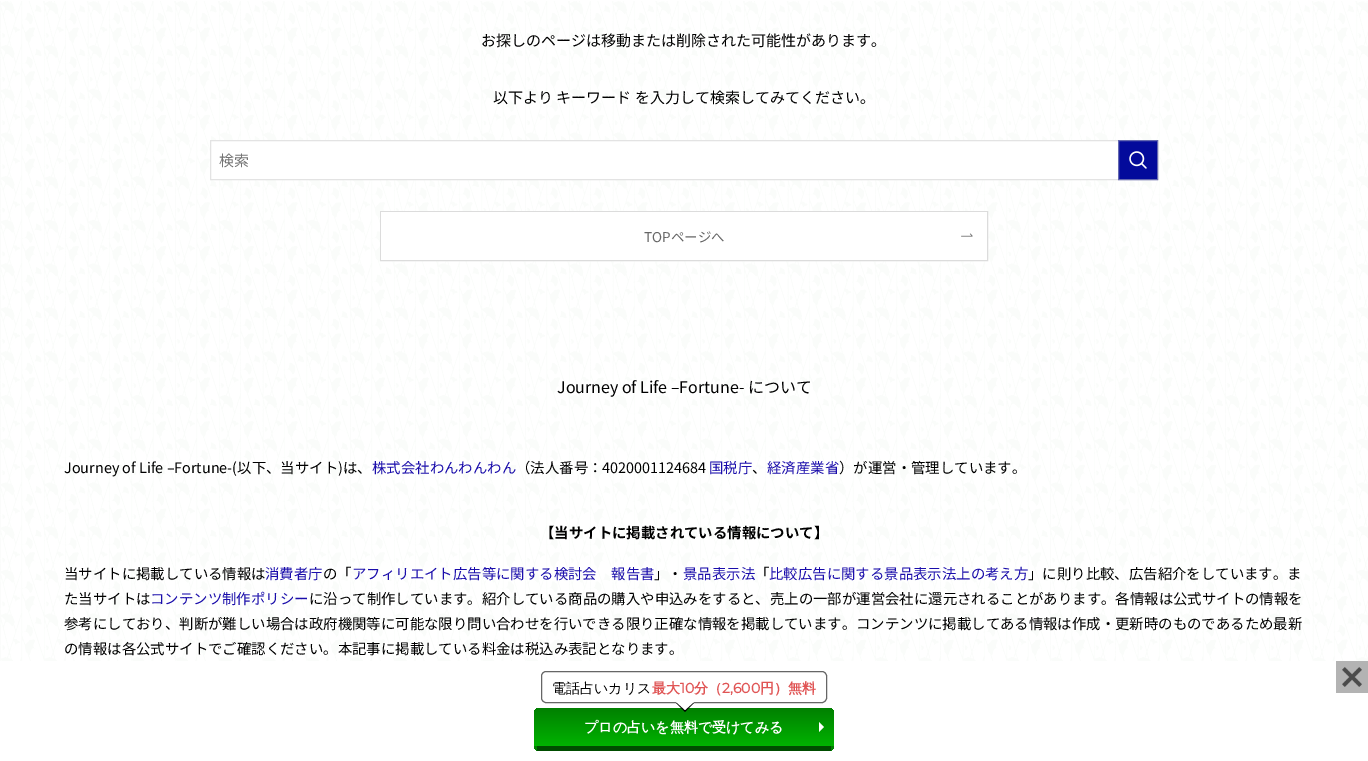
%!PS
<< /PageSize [1368 761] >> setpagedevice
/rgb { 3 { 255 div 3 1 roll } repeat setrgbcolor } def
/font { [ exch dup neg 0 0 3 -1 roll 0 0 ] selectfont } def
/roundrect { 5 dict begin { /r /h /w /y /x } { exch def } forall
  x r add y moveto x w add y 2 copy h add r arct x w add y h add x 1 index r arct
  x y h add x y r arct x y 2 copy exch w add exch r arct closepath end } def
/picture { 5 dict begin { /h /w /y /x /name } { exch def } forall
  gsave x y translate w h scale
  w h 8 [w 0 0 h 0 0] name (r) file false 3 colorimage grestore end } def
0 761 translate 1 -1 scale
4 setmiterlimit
255 255 255 rgb
0 0 1368 761 rectfill
(img/1.rgb) 0 1 1368 660 picture
211 141 907 38 rectfill
227 227 227 rgb
210.5 140.5 947 39 rectstroke
3 10 155 rgb
1118.5 140.5 moveto 1157.5 140.5 lineto 1157.5 179.5 lineto 1118.5 179.5 lineto closepath gsave fill grestore
101 105 177 rgb
stroke
(img/2.rgb) 1129 151 18 18 picture
220 220 220 rgb
380.5 211.5 607 49 rectstroke
255 255 255 rgb
381 212 606 48 rectfill
(img/3.rgb) 961 233 12 4 picture
102 102 102 rgb
541.5 671.5 285 31 4.5 roundrect stroke
gsave
534 708 300 43 6 roundrect clip newpath
gsave 540 708 moveto 828 708 lineto 831.5 708 834 710.5 834 714 curveto 834 746 lineto 534 746 lineto 534 714 lineto 534 710.5 536.5 708 540 708 curveto closepath clip newpath
<< /ShadingType 2 /ColorSpace /DeviceRGB /Coords [684 708 684 746] /Extend [true true] /Function << /FunctionType 2 /Domain [0 1] /C0 [0 0.502 0] /C1 [0 0.702 0] /N 1 >> >> shfill grestore
grestore
0 0 0 rgb
676 703 moveto 694 703 lineto 685 712 lineto closepath fill
255 255 255 rgb
675 701 moveto 695 701 lineto 685 710 lineto closepath fill
179 179 179 rgb
1336 661 32 32 rectfill
(img/4.rgb) 1342 667 20 20 picture
gsave
534 708 300 43 6 roundrect clip newpath
gsave 534 746 moveto 834 746 lineto 834 751 lineto 534 751 lineto closepath clip newpath
<< /ShadingType 2 /ColorSpace /DeviceRGB /Coords [684 746 684 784] /Extend [true true] /Function << /FunctionType 2 /Domain [0 1] /C0 [0 0.502 0] /C1 [0 0.702 0] /N 1 >> >> shfill grestore
grestore
0 77 0 rgb
537 746 294 5 rectfill
255 255 255 rgb
819 732 moveto 819 722 lineto 824 727 lineto closepath fill
/NotoSansJP-Regular 15 font
0 0 0 rgb
481 46 moveto (お探しのページは移動または削除された可能性があります。) show
493 103 moveto (以下より キーワード を入力して検索してみてください。) show
117 117 117 rgb
219 166 moveto (検索) show
/NotoSansJP-Regular 13.5 font
102 102 102 rgb
644 242 moveto (TOPページへ) show
/NotoSansJP-Regular 16 font
0 0 0 rgb
557 393 moveto (Journey of Life –Fortune- について) show
/NotoSansJP-Regular 14.4 font
64 473 moveto (Journey of Life –Fortune-\(以下、当サイト\)は、) show
26 13 171 rgb
372 473 moveto (株式会社わんわんわん) show
0 0 0 rgb
516 473 moveto (（法人番号：4020001124684) show
26 13 171 rgb
709 473 moveto (国税庁) show
0 0 0 rgb
752 473 moveto (、) show
26 13 171 rgb
767 473 moveto (経済産業省) show
0 0 0 rgb
839 473 moveto (）が運営・管理しています。) show
/NotoSansJP-Bold 14.4 font
540 538 moveto (【当サイトに掲載されている情報について】) show
/NotoSansJP-Regular 14.4 font
64 579 moveto (当サイトに掲載している情報は) show
26 13 171 rgb
265 579 moveto (消費者庁) show
0 0 0 rgb
323 579 moveto (の「) show
26 13 171 rgb
352 579 moveto (アフィリエイト広告等に関する検討会　報告書) show
0 0 0 rgb
654 579 moveto (」・) show
26 13 171 rgb
683 579 moveto (景品表示法) show
0 0 0 rgb
755 579 moveto (「) show
26 13 171 rgb
769 579 moveto (比較広告に関する景品表示法上の考え方) show
0 0 0 rgb
1028 579 moveto (」に則り比較、広告紹介をしています。ま) show
64 604 moveto (た当サイトは) show
26 13 171 rgb
150 604 moveto (コンテンツ制作ポリシー) show
0 0 0 rgb
[
  [(に沿って制作しています。紹介している商品の購入や申込みをすると、売上の一部が運営会社に還元されることがあります。各情報は公式サイトの情報を) 309 604]
  [(参考にしており、判断が難しい場合は政府機関等に可能な限り問い合わせを行いできる限り正確な情報を掲載しています。コンテンツに掲載してある情報は作成・更新時のものであるため最新) 64 629]
  [(の情報は各公式サイトでご確認ください。本記事に掲載している料金は税込み表記となります。) 64 654]
] { aload pop moveto show } forall
/WenQuanYiZenHei-Medium 14 font
552 693 moveto (電話占いカリス) show
/WenQuanYiZenHei-Bold 14 font
224 85 85 rgb
652 693 moveto (最大) show
/Montserrat-Bold 14 font
680 693 moveto (10) show
/WenQuanYiZenHei-Bold 14 font
694 693 moveto (分（) show
/Montserrat-Bold 14 font
722 693 moveto (2,600) show
/WenQuanYiZenHei-Bold 14 font
760 693 moveto (円）無料) show
255 255 255 rgb
584 732 moveto (プロの占いを無料で受けてみる) show
showpage
